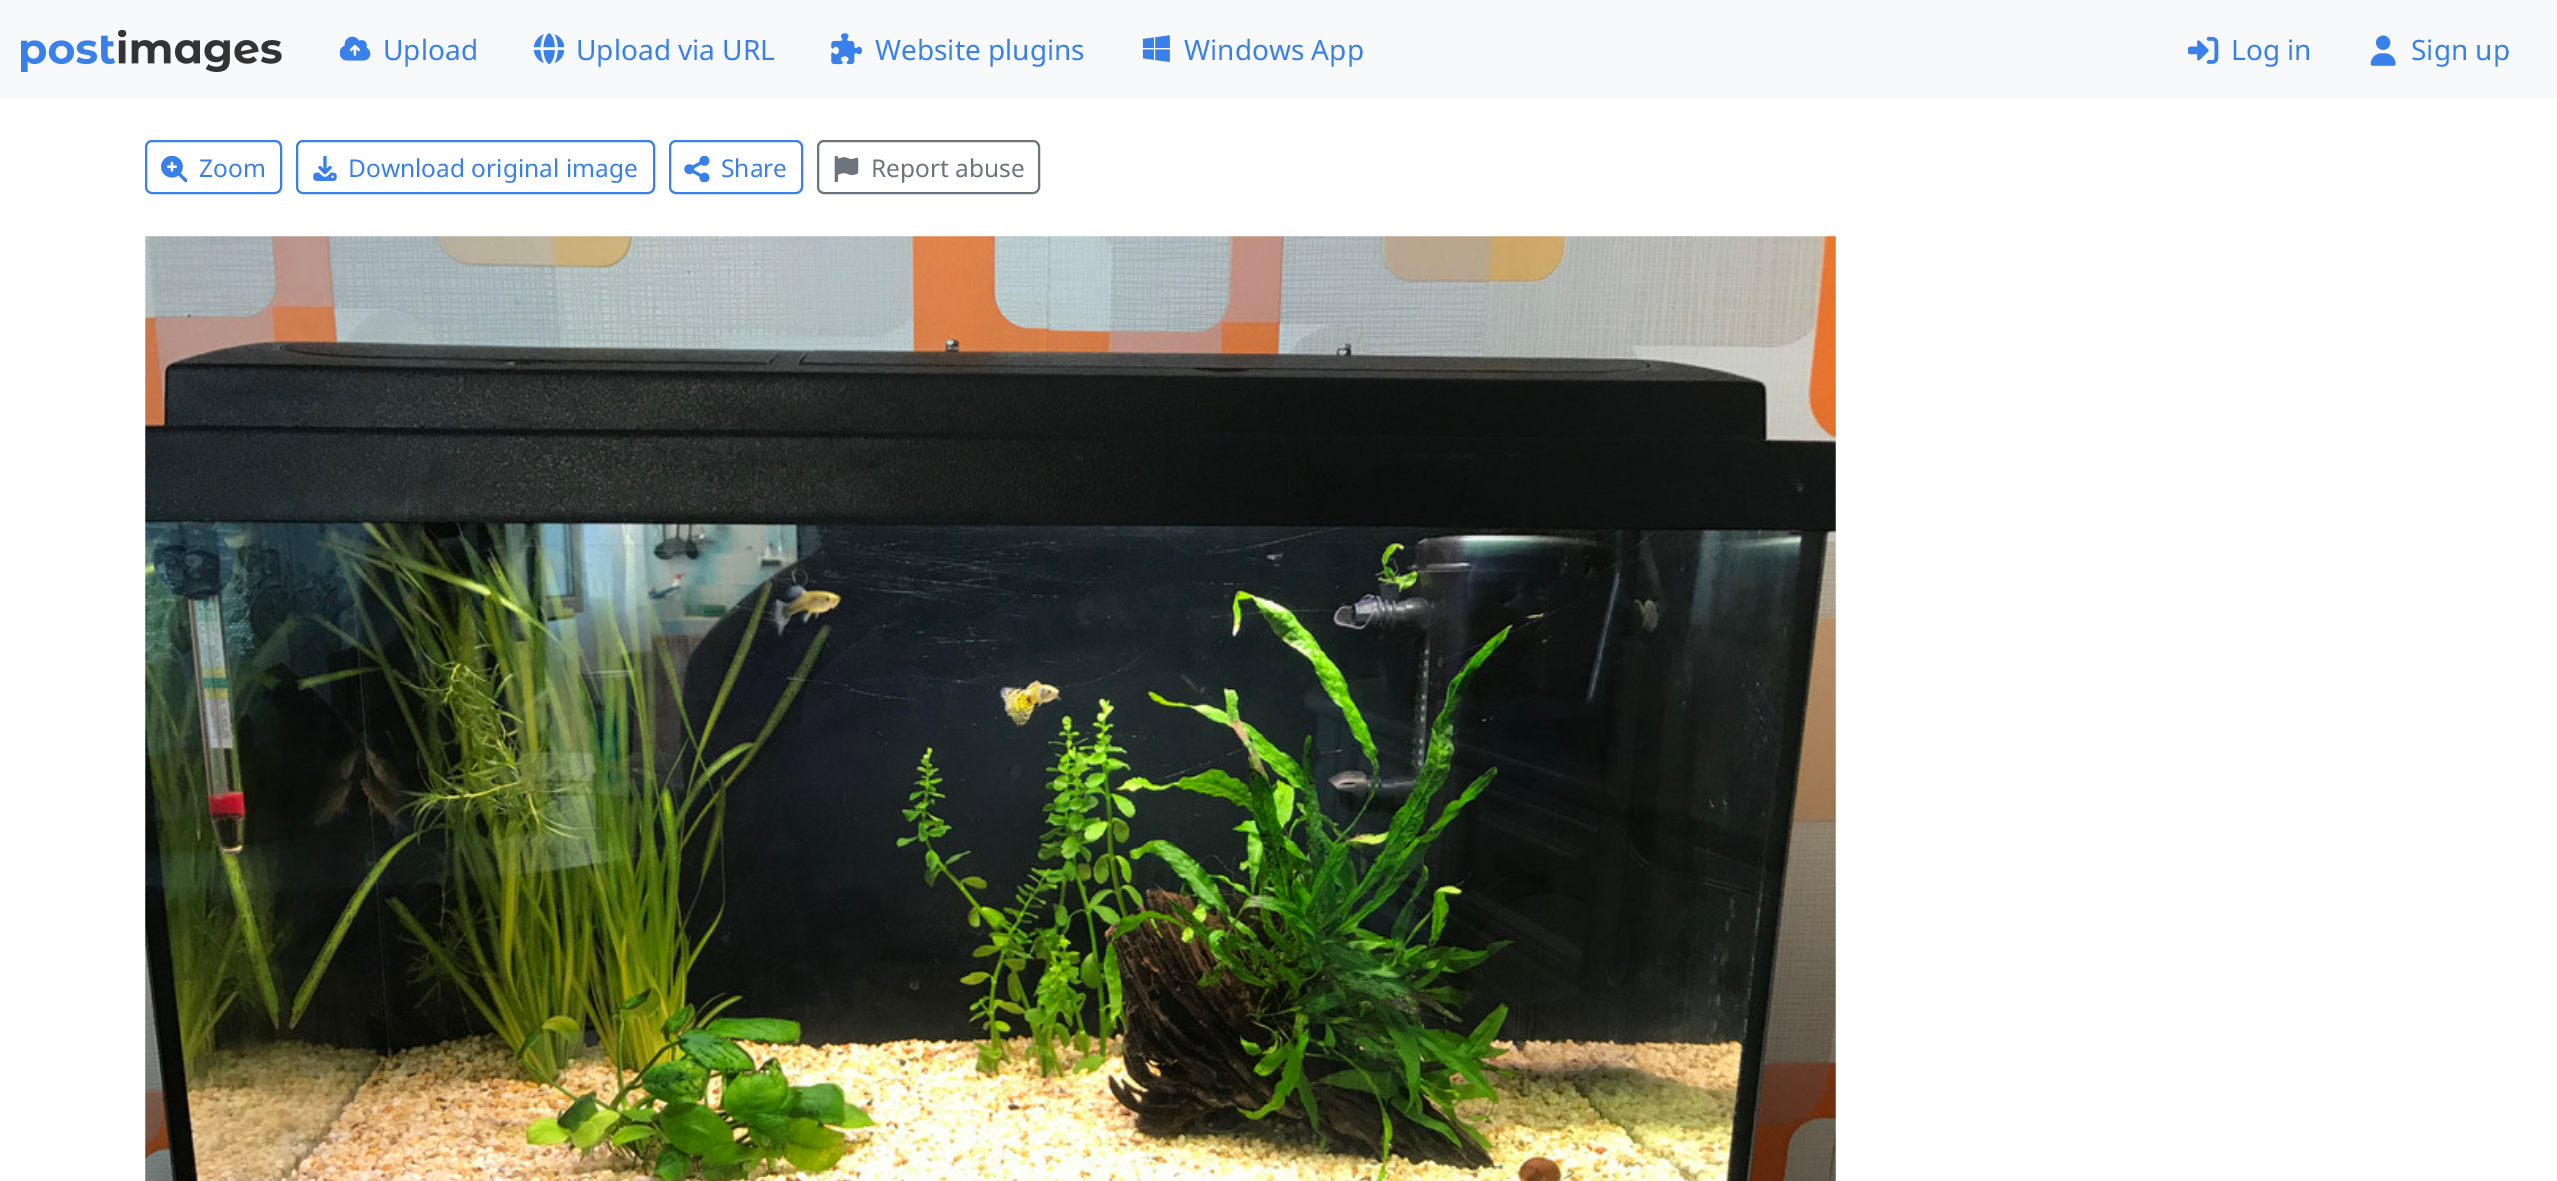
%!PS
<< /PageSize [2557 1181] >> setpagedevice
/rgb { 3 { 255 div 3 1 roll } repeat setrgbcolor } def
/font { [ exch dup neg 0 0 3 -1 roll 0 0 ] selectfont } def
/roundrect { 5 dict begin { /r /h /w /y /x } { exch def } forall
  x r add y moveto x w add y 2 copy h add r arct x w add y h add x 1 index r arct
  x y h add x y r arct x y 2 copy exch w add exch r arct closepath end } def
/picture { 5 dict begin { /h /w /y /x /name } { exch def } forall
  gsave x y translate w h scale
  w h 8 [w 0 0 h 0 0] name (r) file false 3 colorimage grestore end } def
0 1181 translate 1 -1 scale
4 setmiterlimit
255 255 255 rgb
0 0 2557 1181 rectfill
248 249 250 rgb
0 0 2557 98 rectfill
(img/1.rgb) 21 30 261 42 picture
(img/2.rgb) 340 36 31 25 picture
(img/3.rgb) 534 33 30 31 picture
(img/4.rgb) 831 33 31 32 picture
(img/5.rgb) 1142 35 28 28 picture
(img/6.rgb) 2188 36 31 28 picture
(img/7.rgb) 2370 35 26 31 picture
58 128 234 rgb
2 setlinewidth
146 141 135 52 6 roundrect stroke
(img/8.rgb) 161 156 26 26 picture
297 141 357 52 6 roundrect stroke
(img/9.rgb) 313 156 24 25 picture
670 141 132 52 6 roundrect stroke
(img/10.rgb) 684 156 26 26 picture
108 117 125 rgb
818 141 221 52 6 roundrect stroke
(img/11.rgb) 834 156 25 26 picture
(img/12.rgb) 145 236 1691 945 picture
/NotoSans-Regular 28 font
58 128 234 rgb
[
  [(Upload) 383 60]
  [(Upload via URL) 576 60]
  [(Website plugins) 875 60]
  [(Windows App) 1184 60]
  [(Log in) 2231 60]
  [(Sign up) 2411 60]
] { aload pop moveto show } forall
/NotoSans-Regular 24.5 font
[
  [(Zoom) 199 177]
  [(Download original image) 348 177]
  [(Share) 721 177]
] { aload pop moveto show } forall
108 117 125 rgb
871 177 moveto (Report abuse) show
showpage
